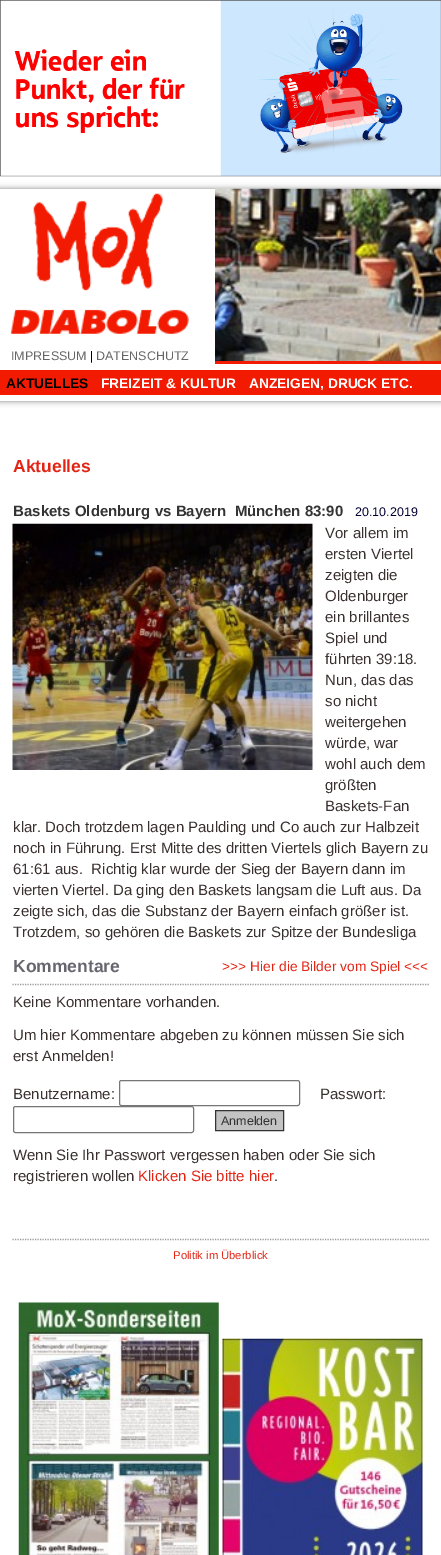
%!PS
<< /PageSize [441 1555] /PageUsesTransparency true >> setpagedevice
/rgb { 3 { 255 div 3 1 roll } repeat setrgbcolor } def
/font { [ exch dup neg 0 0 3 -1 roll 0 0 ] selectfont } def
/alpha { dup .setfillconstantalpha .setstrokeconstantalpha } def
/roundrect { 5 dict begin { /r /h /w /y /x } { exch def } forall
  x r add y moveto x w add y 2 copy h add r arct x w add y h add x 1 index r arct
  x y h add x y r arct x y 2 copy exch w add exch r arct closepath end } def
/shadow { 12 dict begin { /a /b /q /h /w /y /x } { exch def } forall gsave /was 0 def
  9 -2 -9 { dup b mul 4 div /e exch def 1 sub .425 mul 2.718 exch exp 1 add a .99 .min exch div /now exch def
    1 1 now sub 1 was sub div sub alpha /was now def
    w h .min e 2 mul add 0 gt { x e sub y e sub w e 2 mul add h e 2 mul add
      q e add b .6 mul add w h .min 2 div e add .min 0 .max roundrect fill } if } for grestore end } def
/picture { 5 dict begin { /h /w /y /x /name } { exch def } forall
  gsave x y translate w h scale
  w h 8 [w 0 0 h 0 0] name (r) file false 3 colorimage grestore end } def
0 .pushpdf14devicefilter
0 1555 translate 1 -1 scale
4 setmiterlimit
255 255 255 rgb
0 0 441 1555 rectfill
(img/1.rgb) 0 0 441 177 picture
gsave
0 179 moveto 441 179 lineto 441 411 lineto 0 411 lineto closepath 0 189 moveto 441 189 lineto 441 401 lineto 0 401 lineto closepath eoclip newpath
128 128 128 rgb
0 189 441 212 0 3 1 shadow
grestore
(img/2.rgb) 10 193 179 141 picture
(img/3.rgb) 215 188 226 173 picture
242 27 2 rgb
215 361 226 3 rectfill
0 370 441 25 rectfill
(img/4.rgb) 12 523 301 247 picture
153 153 153 rgb
1.2 setlinewidth
[1.25 1.25] 0 setdash
12.5 984.5 moveto 429 984.5 lineto stroke
118 118 118 rgb
1 setlinewidth
[] 0 setdash
119.5 1080.5 180 25 2 roundrect stroke
13.5 1106.5 180 26 2 roundrect stroke
195 195 195 rgb
215.5 1110.5 moveto 283.5 1110.5 lineto 283.5 1130.5 lineto 215.5 1130.5 lineto closepath gsave fill grestore
51 51 51 rgb
stroke
153 153 153 rgb
1.2 setlinewidth
[1.25 1.25] 0 setdash
12.5 1239.5 moveto 429 1239.5 lineto stroke
(img/5.rgb) 18 1302 201 253 picture
(img/6.rgb) 222 1338 201 217 picture
/LiberationSans-Regular 12.5 font
102 102 102 rgb
11 360 moveto (IMPRESSUM) show
0 0 0 rgb
90 360 moveto (|) show
102 102 102 rgb
96 360 moveto (DATENSCHUTZ) show
/LiberationSans-Bold 13.75 font
0 0 0 rgb
6 388 moveto (AKTUELLES) show
255 255 255 rgb
101 388 moveto (FREIZEIT & KULTUR) show
249 388 moveto (ANZEIGEN, DRUCK ETC.) show
/LiberationSans-Bold 17.5 font
226 36 20 rgb
13 472 moveto (Aktuelles) show
/LiberationSans-Bold 15 font
51 51 51 rgb
13 516 moveto (Baskets Oldenburg vs Bayern  München 83:90) show
/LiberationSans-Regular 12.5 font
0 0 51 rgb
355 516 moveto (20.10.2019) show
/LiberationSans-Regular 15 font
58 48 47 rgb
[
  [(Vor allem im) 325 538]
  [(ersten Viertel) 325 559]
  [(zeigten die) 325 580]
  [(Oldenburger) 325 601]
  [(ein brillantes) 325 622]
  [(Spiel und) 325 643]
  [(führten 39:18.) 325 664]
  [(Nun, das das) 325 685]
  [(so nicht) 325 706]
  [(weitergehen) 325 727]
  [(würde, war) 325 748]
  [(wohl auch dem) 325 769]
  [(größten) 325 790]
  [(Baskets-Fan) 325 811]
  [(klar. Doch trotzdem lagen Paulding und Co auch zur Halbzeit) 13 832]
  [(noch in Führung. Erst Mitte des dritten Viertels glich Bayern zu) 13 853]
  [(61:61 aus.  Richtig klar wurde der Sieg der Bayern dann im) 13 874]
  [(vierten Viertel. Da ging den Baskets langsam die Luft aus. Da) 13 895]
  [(zeigte sich, das die Substanz der Bayern einfach größer ist.) 13 916]
  [(Trotzdem, so gehören die Baskets zur Spitze der Bundesliga) 13 937]
] { aload pop moveto show } forall
/LiberationSans-Bold 17.5 font
102 102 110 rgb
13 972 moveto (Kommentare) show
/LiberationSans-Regular 15 font
58 48 47 rgb
[
  [(Keine Kommentare vorhanden.) 13 1007]
  [(Um hier Kommentare abgeben zu können müssen Sie sich) 13 1040]
  [(erst Anmelden!) 13 1061]
  [(Benutzername:) 13 1099]
  [(Passwort:) 320 1099]
] { aload pop moveto show } forall
/LiberationSans-Regular 12.5 font
51 51 51 rgb
221 1125 moveto (Anmelden) show
/LiberationSans-Regular 15 font
58 48 47 rgb
13 1160 moveto (Wenn Sie Ihr Passwort vergessen haben oder Sie sich) show
13 1181 moveto (registrieren wollen) show
226 36 20 rgb
138 1181 moveto (Klicken Sie bitte hier) show
58 48 47 rgb
274 1181 moveto (.) show
/LiberationSans-Regular 13.75 font
226 36 20 rgb
222 971 moveto (>>> Hier die Bilder vom Spiel <<<) show
/LiberationSans-Regular 11.25 font
173 1259 moveto (Politik im Überblick) show
.poppdf14devicefilter showpage
